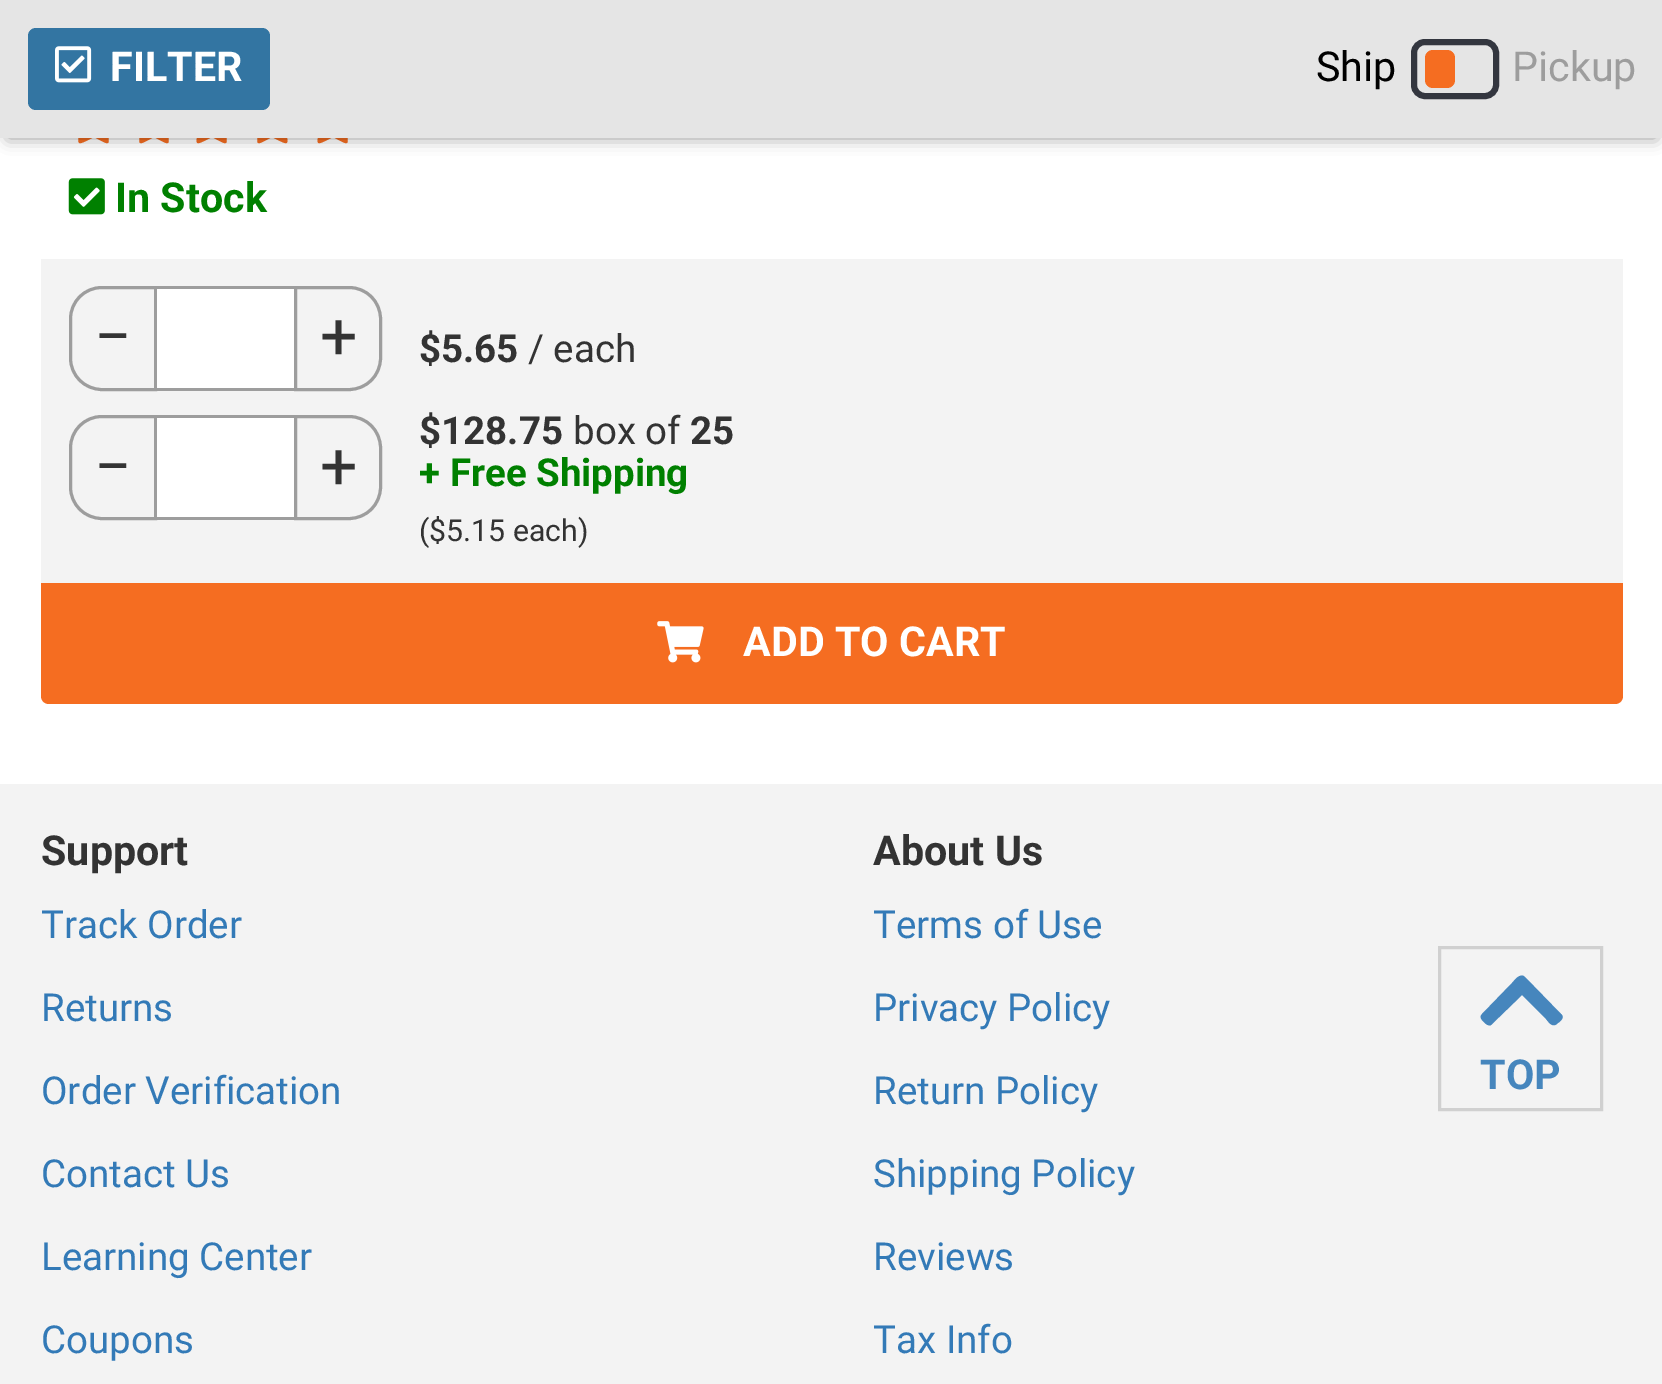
%!PS
<< /PageSize [1662 1384] /PageUsesTransparency true >> setpagedevice
/rgb { 3 { 255 div 3 1 roll } repeat setrgbcolor } def
/font { [ exch dup neg 0 0 3 -1 roll 0 0 ] selectfont } def
/alpha { dup .setfillconstantalpha .setstrokeconstantalpha } def
/roundrect { 5 dict begin { /r /h /w /y /x } { exch def } forall
  x r add y moveto x w add y 2 copy h add r arct x w add y h add x 1 index r arct
  x y h add x y r arct x y 2 copy exch w add exch r arct closepath end } def
/shadow { 12 dict begin { /a /b /q /h /w /y /x } { exch def } forall gsave /was 0 def
  9 -2 -9 { dup b mul 4 div /e exch def 1 sub .425 mul 2.718 exch exp 1 add a .99 .min exch div /now exch def
    1 1 now sub 1 was sub div sub alpha /was now def
    w h .min e 2 mul add 0 gt { x e sub y e sub w e 2 mul add h e 2 mul add
      q e add b .6 mul add w h .min 2 div e add .min 0 .max roundrect fill } if } for grestore end } def
/picture { 5 dict begin { /h /w /y /x /name } { exch def } forall
  gsave x y translate w h scale
  w h 8 [w 0 0 h 0 0] name (r) file false 3 colorimage grestore end } def
0 .pushpdf14devicefilter
0 1384 translate 1 -1 scale
4 setmiterlimit
255 255 255 rgb
0 0 1662 1384 rectfill
245 109 33 rgb
91 101 moveto 85 112 lineto 66 115 66 114 80 127 curveto 77 147 76 146 94 137 curveto 111 146 110 147 107 127 curveto 121 114 121 115 102 112 curveto 98 104 lineto 97 102 96 99 93 99 curveto closepath fill
152 101 moveto 146 112 lineto 127 115 127 114 141 127 curveto 138 147 137 146 154 137 curveto 171 146 170 147 167 127 curveto 181 114 181 115 162 112 curveto 158 104 lineto 157 102 156 99 154 99 curveto closepath fill
209 101 moveto 204 112 lineto 184 115 185 114 199 127 curveto 195 147 194 146 212 137 curveto 229 146 228 147 225 127 curveto 239 114 239 115 220 112 curveto 216 104 lineto 215 102 214 99 211 99 curveto closepath fill
270 101 moveto 264 112 lineto 245 115 245 114 259 127 curveto 256 147 255 146 272 137 curveto 290 146 289 147 285 127 curveto 299 114 300 115 280 112 curveto 277 104 lineto 276 102 275 99 272 99 curveto closepath fill
330 101 moveto 325 112 lineto 305 115 306 114 320 127 curveto 316 147 315 146 333 137 curveto 350 146 349 147 346 127 curveto 360 114 360 115 341 112 curveto 337 104 lineto 336 102 335 99 332 99 curveto closepath fill
0 0 0 rgb
8 17 1648 121 0 8 0.41 shadow
229 229 229 rgb
0 0 1662 138 rectfill
51 117 162 rgb
28 28 242 82 8 roundrect fill
(img/1.rgb) 55 46 37 37 picture
51 54 63 rgb
6 setlinewidth
1414 42 82 54 11 roundrect stroke
245 109 33 rgb
1425 50 30 38 8 roundrect fill
(img/2.rgb) 68 178 37 37 picture
243 243 243 rgb
41 259 1582 324 rectfill
157 157 157 rgb
3 setlinewidth
102 287.5 moveto 155.5 287.5 lineto 155.5 389.5 lineto 102 389.5 lineto 84.5 389.5 70.5 375.5 70.5 358 curveto 70.5 319 lineto 70.5 301.5 84.5 287.5 102 287.5 curveto closepath stroke
[
  [157 289 137 99 255 255 255]
  [157 286 137 3 157 157 157]
  [157 388 137 3 157 157 157]
] { aload pop rgb rectfill } forall
295.5 287.5 moveto 349 287.5 lineto 366.5 287.5 380.5 301.5 380.5 319 curveto 380.5 358 lineto 380.5 375.5 366.5 389.5 349 389.5 curveto 295.5 389.5 lineto closepath stroke
102 416.5 moveto 155.5 416.5 lineto 155.5 518.5 lineto 102 518.5 lineto 84.5 518.5 70.5 504.5 70.5 487 curveto 70.5 448 lineto 70.5 430.5 84.5 416.5 102 416.5 curveto closepath stroke
[
  [157 418 137 99 255 255 255]
  [157 415 137 3 157 157 157]
  [157 517 137 3 157 157 157]
] { aload pop rgb rectfill } forall
295.5 416.5 moveto 349 416.5 lineto 366.5 416.5 380.5 430.5 380.5 448 curveto 380.5 487 lineto 380.5 504.5 366.5 518.5 349 518.5 curveto 295.5 518.5 lineto closepath stroke
245 109 33 rgb
41 583 moveto 1623 583 lineto 1623 696 lineto 1623 700.5 1619.5 704 1615 704 curveto 49 704 lineto 44.5 704 41 700.5 41 696 curveto closepath fill
(img/3.rgb) 657 621 47 42 picture
243 243 243 rgb
0 784 1662 600 rectfill
208 208 208 rgb
1439.5 947.5 162 162 rectstroke
70 134 189 rgb
1525 977 moveto 1561 1014 lineto 1565 1017 1561 1021 1558 1023 curveto 1553 1028 1550 1024 1546 1019 curveto 1522 995 lineto 1491 1025 lineto 1490 1026 1487 1025 1486 1024 curveto 1484 1022 1478 1018 1482 1014 curveto 1512 983 lineto 1514 981 1520 972 1525 977 curveto closepath fill
/Roboto-Bold 41.25 font
255 255 255 rgb
110 81 moveto (FILTER) show
/Roboto-Regular 41.25 font
0 0 0 rgb
1316 81 moveto (Ship) show
157 157 157 rgb
1512 81 moveto (Pickup) show
/Roboto-Bold 41.25 font
0 128 0 rgb
115 212 moveto (In Stock) show
/Roboto-Regular 66 font
51 51 51 rgb
94 359 moveto (−) show
320 359 moveto (+) show
/Roboto-Bold 38.5 font
419 362 moveto ($5.65) show
/Roboto-Regular 38.5 font
528 362 moveto (/ each) show
/Roboto-Regular 66 font
94 489 moveto (−) show
320 489 moveto (+) show
/Roboto-Bold 38.5 font
419 444 moveto ($128.75) show
/Roboto-Regular 38.5 font
573 444 moveto (box of) show
/Roboto-Bold 38.5 font
690 444 moveto (25) show
0 128 0 rgb
419 486 moveto (+ Free Shipping) show
/Roboto-Regular 30.25 font
51 51 51 rgb
419 541 moveto (\($5.15 each\)) show
/Roboto-Bold 41.25 font
255 255 255 rgb
743 656 moveto (ADD TO CART) show
51 51 51 rgb
41 865 moveto (Support) show
/Roboto-Regular 38.5 font
51 122 183 rgb
[
  [(Track Order) 41 938]
  [(Returns) 41 1021]
  [(Order Verification) 41 1104]
  [(Contact Us) 41 1187]
  [(Learning Center) 41 1270]
  [(Coupons) 41 1353]
] { aload pop moveto show } forall
/Roboto-Bold 41.25 font
51 51 51 rgb
873 865 moveto (About Us) show
/Roboto-Regular 38.5 font
51 122 183 rgb
[
  [(Terms of Use) 873 938]
  [(Privacy Policy) 873 1021]
  [(Return Policy) 873 1104]
  [(Shipping Policy) 873 1187]
  [(Reviews) 873 1270]
  [(Tax Info) 873 1353]
] { aload pop moveto show } forall
/Roboto-Bold 41.25 font
70 134 189 rgb
1480 1089 moveto (TOP) show
.poppdf14devicefilter showpage
